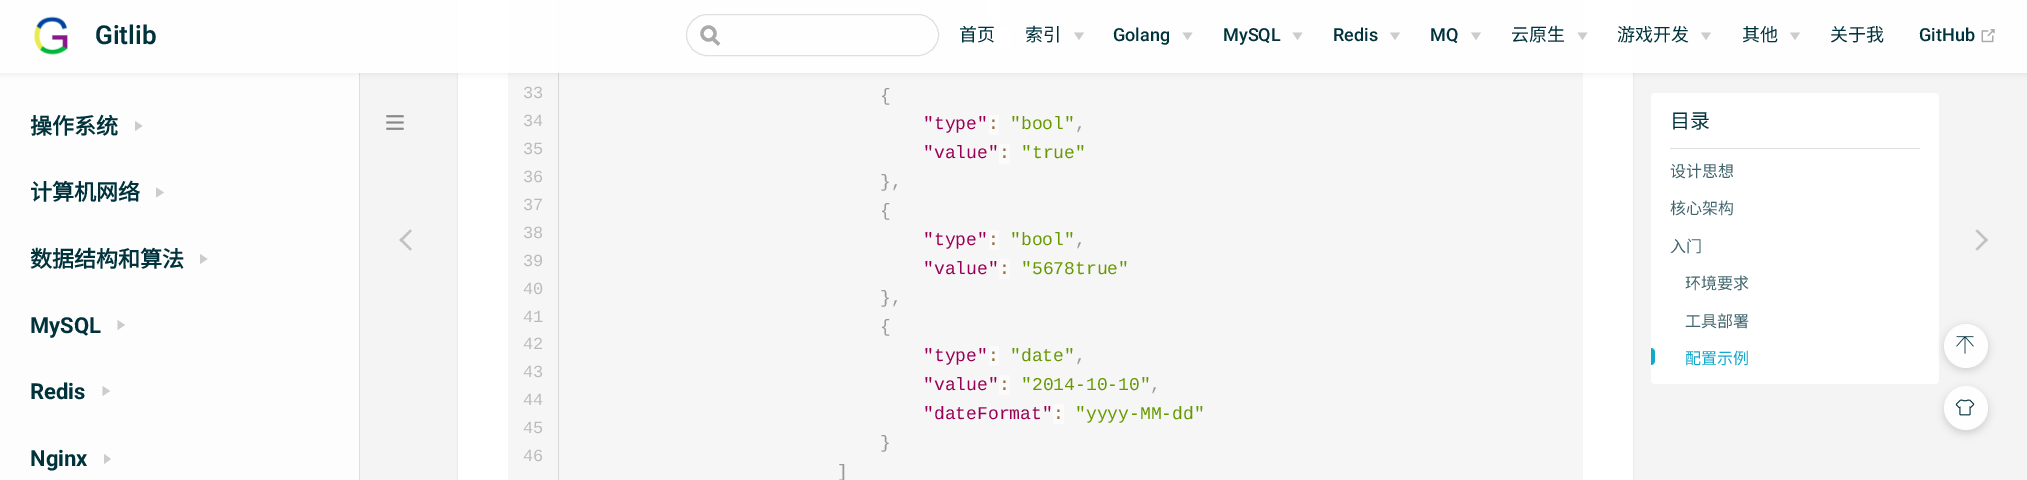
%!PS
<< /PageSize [2027 480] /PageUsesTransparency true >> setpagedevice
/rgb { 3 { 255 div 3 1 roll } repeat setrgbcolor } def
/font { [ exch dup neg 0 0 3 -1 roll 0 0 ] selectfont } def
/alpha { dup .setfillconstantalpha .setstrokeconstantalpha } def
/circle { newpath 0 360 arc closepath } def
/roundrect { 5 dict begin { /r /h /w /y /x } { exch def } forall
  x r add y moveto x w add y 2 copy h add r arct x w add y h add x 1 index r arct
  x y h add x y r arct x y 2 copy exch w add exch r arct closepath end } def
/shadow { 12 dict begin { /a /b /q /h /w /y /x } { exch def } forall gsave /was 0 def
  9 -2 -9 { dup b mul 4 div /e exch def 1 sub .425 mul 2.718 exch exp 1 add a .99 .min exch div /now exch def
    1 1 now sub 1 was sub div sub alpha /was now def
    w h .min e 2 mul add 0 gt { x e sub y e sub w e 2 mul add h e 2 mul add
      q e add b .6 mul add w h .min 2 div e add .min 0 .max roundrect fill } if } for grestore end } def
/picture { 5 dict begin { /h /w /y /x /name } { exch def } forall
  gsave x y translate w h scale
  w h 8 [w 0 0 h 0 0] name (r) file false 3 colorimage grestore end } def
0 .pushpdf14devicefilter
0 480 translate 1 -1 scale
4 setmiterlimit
244 244 244 rgb
0 0 2027 480 rectfill
253 253 253 rgb
0 73 359 407 rectfill
223 223 223 rgb
359 73 1 407 rectfill
0 0 0 rgb
458 -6 1175 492 2.5 1 0.1 shadow
[
  [458 0 1175 480 255 255 255]
  [508 0 1075 480 246 246 246]
  [558 0 1 480 216 216 216]
  [989 0 10 19 251 251 251]
  [999 28 11 20 251 251 251]
] { aload pop rgb rectfill } forall
gsave
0 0 moveto 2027 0 lineto 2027 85 lineto 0 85 lineto closepath 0 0 moveto 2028 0 lineto 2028 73 lineto 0 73 lineto closepath eoclip newpath
0 0 0 rgb
0 3 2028 72 0 3 0.06 shadow
grestore
0.9 alpha
255 255 255 rgb
0 0 2027 73 rectfill
1 alpha
(img/1.rgb) 34 16 34 39 picture
170 170 170 rgb
3.3 setlinewidth
719 44.5 moveto 712 38 lineto stroke
708.5 33.5 6.5 circle stroke
0.12 alpha
0 0 0 rgb
1 setlinewidth
686.5 14.5 252 41 20.5 roundrect stroke
1 alpha
204 204 204 rgb
1074 32.5 moveto 1084 32.5 lineto 1079 40 lineto closepath fill
1182.5 32.5 moveto 1192.5 32.5 lineto 1187.5 40 lineto closepath fill
1292.5 32.5 moveto 1302.5 32.5 lineto 1297.5 40 lineto closepath fill
1390 32.5 moveto 1400 32.5 lineto 1395 40 lineto closepath fill
1471 32.5 moveto 1481 32.5 lineto 1476 40 lineto closepath fill
1577.5 32.5 moveto 1587.5 32.5 lineto 1582.5 40 lineto closepath fill
1701 32.5 moveto 1711 32.5 lineto 1706 40 lineto closepath fill
1790 32.5 moveto 1800 32.5 lineto 1795 40 lineto closepath fill
(img/2.rgb) 1981 29 14 14 picture
(img/3.rgb) 386 115 18 15 picture
135 131 moveto 135 121 lineto 142.5 126 lineto closepath fill
156 197.5 moveto 156 187.5 lineto 164 192.5 lineto closepath fill
200 264 moveto 200 254 lineto 207.5 259 lineto closepath fill
117.5 330 moveto 117.5 320 lineto 125 325 lineto closepath fill
102.5 396 moveto 102.5 386 lineto 110 391 lineto closepath fill
104 464 moveto 104 454 lineto 111 459 lineto closepath fill
[
  [989 115 10 20 251 251 251]
  [999 144 11 20 251 251 251]
  [989 230 10 20 251 251 251]
  [999 259 11 20 251 251 251]
  [989 346 10 20 251 251 251]
  [999 375 11 20 251 251 251]
  [1053 404 11 20 251 251 251]
] { aload pop rgb rectfill } forall
255 255 255 rgb
1655 93 moveto 1935 93 lineto 1937 93 1939 95 1939 97 curveto 1939 149 lineto 1651 149 lineto 1651 97 lineto 1651 95 1653 93 1655 93 curveto closepath fill
224 224 224 rgb
1670 148 250 1 rectfill
255 255 255 rgb
1651 149 moveto 1939 149 lineto 1939 380 lineto 1939 382 1937 384 1935 384 curveto 1655 384 lineto 1653 384 1651 382 1651 380 curveto closepath fill
17 168 205 rgb
1651 348 moveto 1653 348 1655 350 1655 352 curveto 1655 361 lineto 1655 363 1653 365 1651 365 curveto closepath fill
194 194 194 rgb
410 250.5 moveto 399.5 240 lineto 401 238 lineto 412 249 lineto closepath fill
401 242 moveto 399.5 240 lineto 410 229.5 lineto 412 231 lineto closepath fill
1977.5 229.5 moveto 1988 240 lineto 1986.5 242 lineto 1975.5 231 lineto closepath fill
1986.5 238 moveto 1988 240 lineto 1977.5 250.5 lineto 1975.5 249 lineto closepath fill
gsave
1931 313 moveto 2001 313 lineto 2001 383 lineto 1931 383 lineto closepath 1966 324 moveto 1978 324 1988 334 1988 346 curveto 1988 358 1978 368 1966 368 curveto 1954 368 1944 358 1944 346 curveto 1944 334 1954 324 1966 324 curveto closepath eoclip newpath
0 0 0 rgb
1944 326 44 44 22 4 0.15 shadow
grestore
0.9 alpha
255 255 255 rgb
1966 346 22 circle fill
1 alpha
(img/4.rgb) 1956 336 18 18 picture
gsave
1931 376 moveto 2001 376 lineto 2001 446 lineto 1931 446 lineto closepath 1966 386 moveto 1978 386 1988 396 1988 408 curveto 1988 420 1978 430 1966 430 curveto 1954 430 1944 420 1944 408 curveto 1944 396 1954 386 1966 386 curveto closepath eoclip newpath
0 0 0 rgb
1944 389 44 44 22 4 0.15 shadow
grestore
0.9 alpha
1966 408 22 circle fill
1 alpha
(img/5.rgb) 1955 399 20 17 picture
/Roboto-SemiBold 26 font
0 50 60 rgb
95 44 moveto (Gitlib) show
/NotoSansCJKSC-Regular 18 font
959 41 moveto (首页) show
1025 41 moveto (索引) show
/Roboto-Medium 18 font
[
  [(Golang) 1113 41]
  [(MySQL) 1223 41]
  [(Redis) 1333 41]
  [(MQ) 1430 41]
] { aload pop moveto show } forall
/NotoSansCJKSC-Regular 18 font
[
  [(云原生) 1511 41]
  [(游戏开发) 1617 41]
  [(其他) 1742 41]
  [(关于我) 1830 41]
] { aload pop moveto show } forall
/Roboto-Medium 18 font
1919 41 moveto (GitHub) show
/NotoSansCJKSC-Bold 22 font
[
  [(操作系统) 30 134]
  [(计算机网络) 30 200]
  [(数据结构和算法) 30 267]
] { aload pop moveto show } forall
/Roboto-Bold 22 font
[
  [(MySQL) 30 333]
  [(Redis) 30 399]
  [(Nginx) 30 466]
] { aload pop moveto show } forall
/LiberationMono-Regular 17 font
187 187 187 rgb
[
  [(33) 523 98]
  [(34) 523 126]
  [(35) 523 154]
  [(36) 523 182]
  [(37) 523 210]
  [(38) 523 238]
  [(39) 523 266]
  [(40) 523 294]
  [(41) 523 322]
  [(42) 523 349]
  [(43) 523 377]
  [(44) 523 405]
  [(45) 523 433]
  [(46) 523 461]
] { aload pop moveto show } forall
/LiberationMono-Regular 18 font
153 153 153 rgb
880 101 moveto ({) show
153 0 85 rgb
923 129 moveto ("type") show
154 110 58 rgb
988 129 moveto (:) show
102 153 0 rgb
1010 129 moveto ("bool") show
153 153 153 rgb
1075 129 moveto (,) show
153 0 85 rgb
923 158 moveto ("value") show
154 110 58 rgb
999 158 moveto (:) show
102 153 0 rgb
1021 158 moveto ("true") show
153 153 153 rgb
880 187 moveto (},) show
880 216 moveto ({) show
153 0 85 rgb
923 245 moveto ("type") show
154 110 58 rgb
988 245 moveto (:) show
102 153 0 rgb
1010 245 moveto ("bool") show
153 153 153 rgb
1075 245 moveto (,) show
153 0 85 rgb
923 274 moveto ("value") show
154 110 58 rgb
999 274 moveto (:) show
102 153 0 rgb
1021 274 moveto ("5678true") show
153 153 153 rgb
880 303 moveto (},) show
880 332 moveto ({) show
153 0 85 rgb
923 361 moveto ("type") show
154 110 58 rgb
988 361 moveto (:) show
102 153 0 rgb
1010 361 moveto ("date") show
153 153 153 rgb
1075 361 moveto (,) show
153 0 85 rgb
923 390 moveto ("value") show
154 110 58 rgb
999 390 moveto (:) show
102 153 0 rgb
1021 390 moveto ("2014-10-10") show
153 153 153 rgb
1150 390 moveto (,) show
153 0 85 rgb
923 419 moveto ("dateFormat") show
154 110 58 rgb
1053 419 moveto (:) show
102 153 0 rgb
1075 419 moveto ("yyyy-MM-dd") show
153 153 153 rgb
880 448 moveto (}) show
837 477 moveto (]) show
/NotoSansCJKSC-Regular 20 font
0 50 60 rgb
1670 128 moveto (目录) show
/NotoSansCJKSC-Regular 16 font
64 101 109 rgb
[
  [(设计思想) 1670 177]
  [(核心架构) 1670 214]
  [(入门) 1670 252]
  [(环境要求) 1685 289]
  [(工具部署) 1685 327]
] { aload pop moveto show } forall
17 168 205 rgb
1685 364 moveto (配置示例) show
.poppdf14devicefilter showpage
